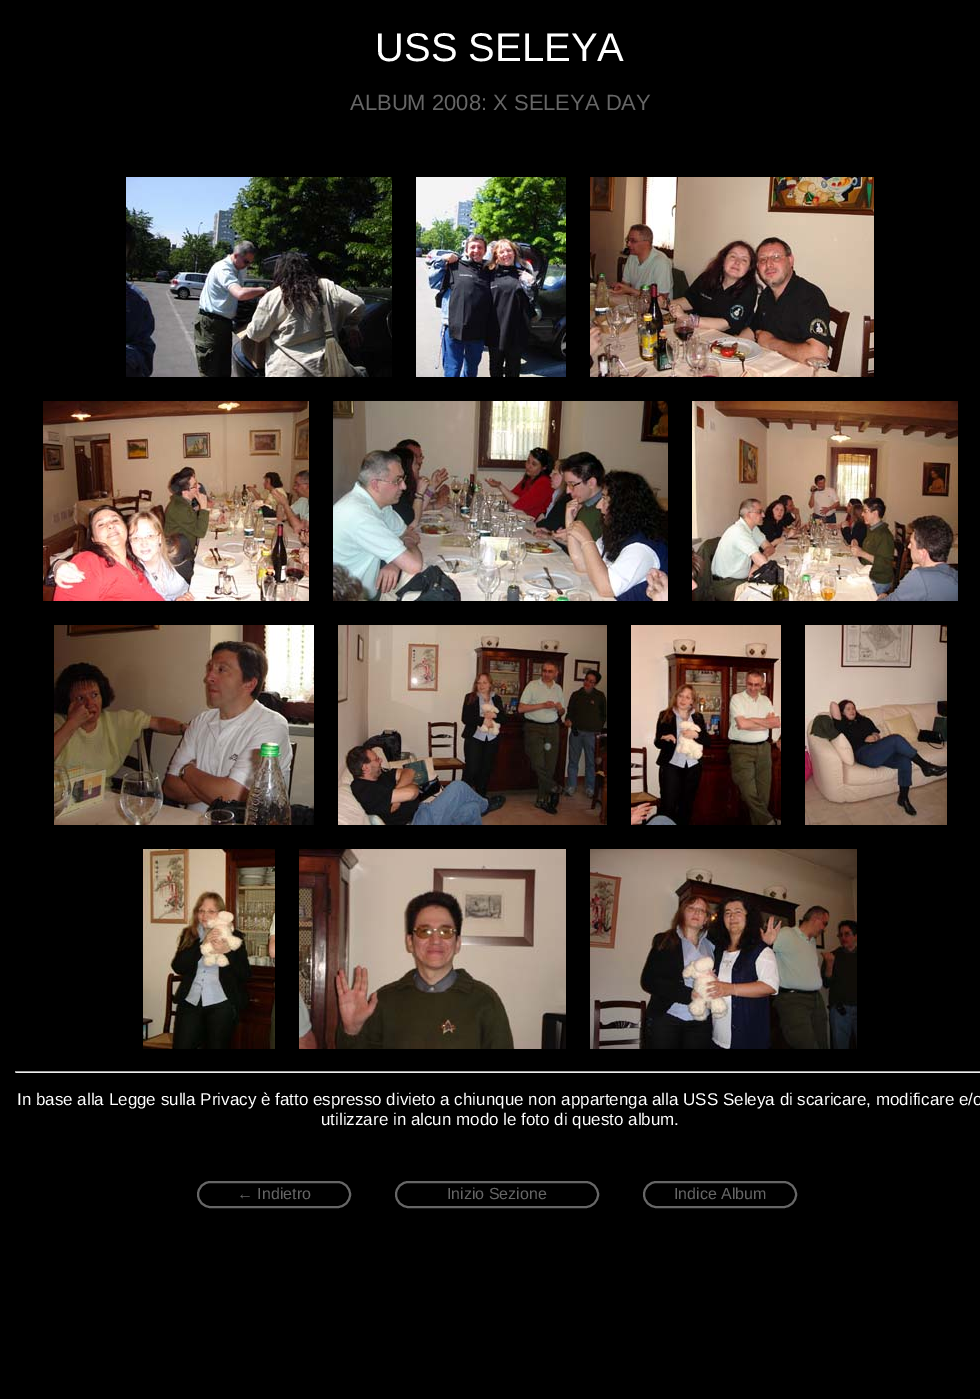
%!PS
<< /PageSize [980 1399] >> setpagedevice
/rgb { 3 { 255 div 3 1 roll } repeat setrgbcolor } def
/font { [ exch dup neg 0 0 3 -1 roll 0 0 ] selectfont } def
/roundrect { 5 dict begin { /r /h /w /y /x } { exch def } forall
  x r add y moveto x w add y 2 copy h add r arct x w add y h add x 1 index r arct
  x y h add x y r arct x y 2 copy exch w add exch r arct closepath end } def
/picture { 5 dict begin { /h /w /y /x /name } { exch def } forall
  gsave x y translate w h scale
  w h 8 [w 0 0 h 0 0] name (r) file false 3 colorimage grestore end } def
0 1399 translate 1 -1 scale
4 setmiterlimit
0 0 0 rgb
0 0 980 1399 rectfill
(img/1.rgb) 126 177 266 200 picture
(img/2.rgb) 416 177 150 200 picture
(img/3.rgb) 590 177 284 200 picture
(img/4.rgb) 43 401 266 200 picture
(img/5.rgb) 333 401 335 200 picture
(img/6.rgb) 692 401 266 200 picture
(img/7.rgb) 54 625 260 200 picture
(img/8.rgb) 338 625 269 200 picture
(img/9.rgb) 631 625 150 200 picture
(img/10.rgb) 805 625 142 200 picture
(img/11.rgb) 143 849 132 200 picture
(img/12.rgb) 299 849 267 200 picture
(img/13.rgb) 590 849 267 200 picture
[
  [15 1071 965 1 159 159 159]
  [15 1072 965 1 238 238 238]
  [15 1071 1 2 159 159 159]
] { aload pop rgb rectfill } forall
102 102 102 rgb
2 setlinewidth
198 1182 152 25 12.5 roundrect stroke
396 1182 202 25 12.5 roundrect stroke
644 1182 152 25 12.5 roundrect stroke
/LiberationSans-Regular 40 font
255 255 255 rgb
375 61 moveto (USS SELEYA) show
/LiberationSans-Regular 22 font
102 102 102 rgb
350 110 moveto (ALBUM 2008: X SELEYA DAY) show
/LiberationSans-Regular 17 font
255 255 255 rgb
17 1105 moveto (In base alla Legge sulla Privacy è fatto espresso divieto a chiunque non appartenga alla USS Seleya di scaricare, modificare e/o) show
321 1125 moveto (utilizzare in alcun modo le foto di questo album.) show
/LiberationSans-Regular 16 font
102 102 102 rgb
[
  [(← Indietro) 237 1199]
  [(Inizio Sezione) 447 1199]
  [(Indice Album) 674 1199]
] { aload pop moveto show } forall
showpage
